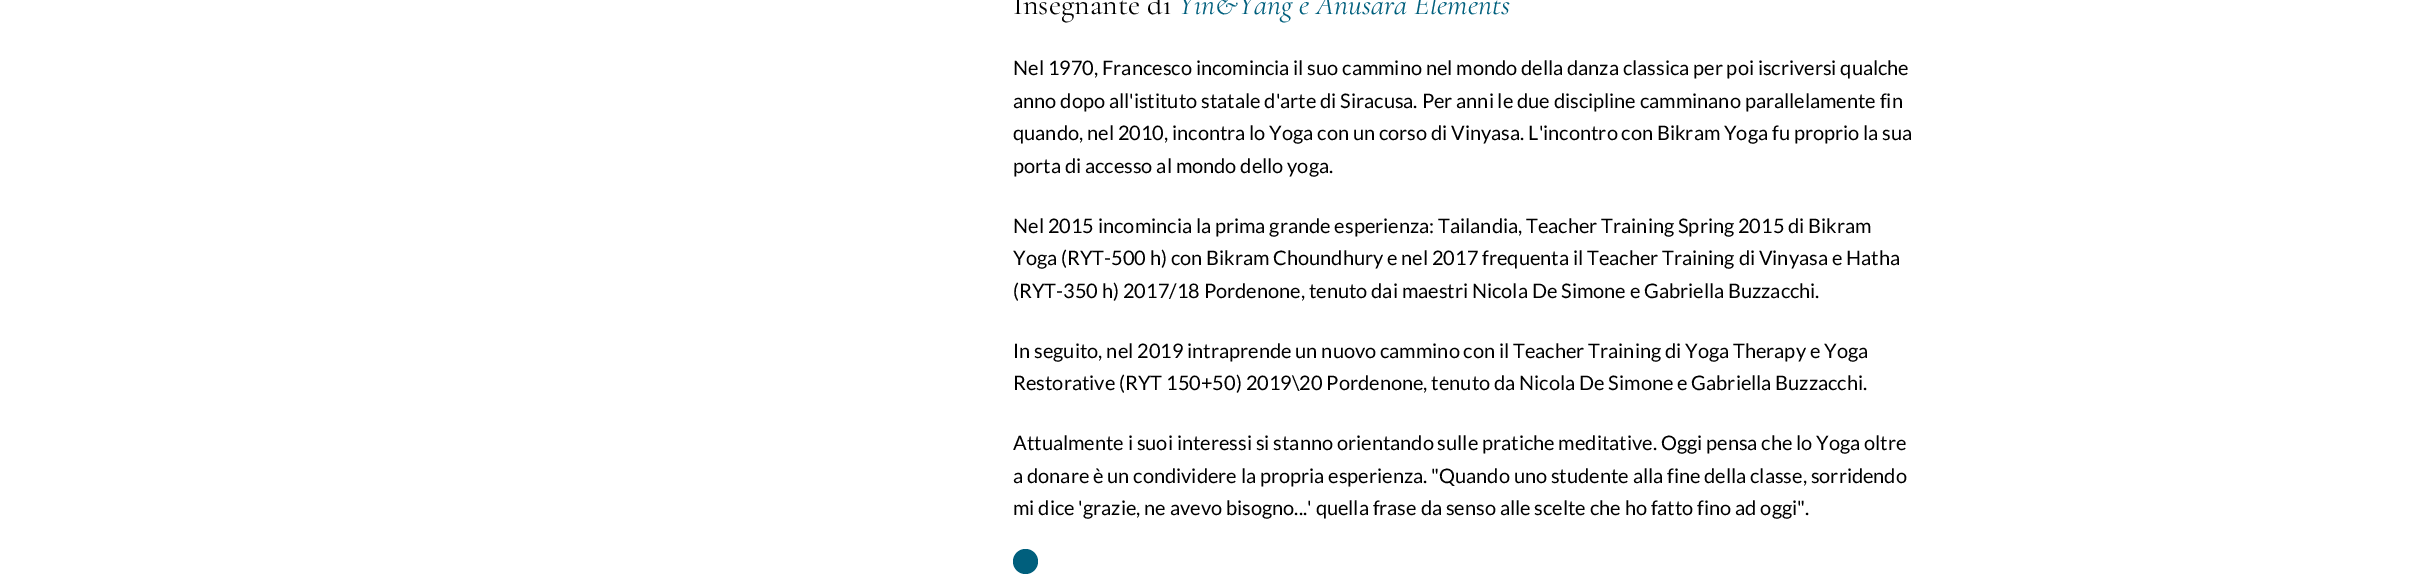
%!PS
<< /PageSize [2426 579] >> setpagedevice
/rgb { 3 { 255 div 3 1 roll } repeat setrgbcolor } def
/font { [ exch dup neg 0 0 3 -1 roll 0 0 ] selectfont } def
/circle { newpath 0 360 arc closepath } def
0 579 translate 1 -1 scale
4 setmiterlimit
255 255 255 rgb
0 0 2426 579 rectfill
0 95 125 rgb
1025.5 561.5 12.5 circle fill
/CormorantGaramond-Regular 30 font
0 0 0 rgb
1013 14 moveto (Insegnante di) show
/CormorantGaramond-Italic 30 font
0 95 125 rgb
1178 14 moveto (Yin&Yang e Anusara Elements) show
/Lato-Regular 20 font
0 0 0 rgb
[
  [(Nel 1970, Francesco incomincia il suo cammino nel mondo della danza classica per poi iscriversi qualche) 1013 75]
  [(anno dopo all'istituto statale d'arte di Siracusa. Per anni le due discipline camminano parallelamente fin) 1013 108]
  [(quando, nel 2010, incontra lo Yoga con un corso di Vinyasa. L'incontro con Bikram Yoga fu proprio la sua) 1013 140]
  [(porta di accesso al mondo dello yoga.) 1013 173]
  [(Nel 2015 incomincia la prima grande esperienza: Tailandia, Teacher Training Spring 2015 di Bikram) 1013 233]
  [(Yoga \(RYT-500 h\) con Bikram Choundhury e nel 2017 frequenta il Teacher Training di Vinyasa e Hatha) 1013 265]
  [(\(RYT-350 h\) 2017/18 Pordenone, tenuto dai maestri Nicola De Simone e Gabriella Buzzacchi.) 1013 298]
  [(In seguito, nel 2019 intraprende un nuovo cammino con il Teacher Training di Yoga Therapy e Yoga) 1013 358]
  [(Restorative \(RYT 150+50\) 2019\\20 Pordenone, tenuto da Nicola De Simone e Gabriella Buzzacchi.) 1013 390]
  [(Attualmente i suoi interessi si stanno orientando sulle pratiche meditative. Oggi pensa che lo Yoga oltre) 1013 450]
  [(a donare è un condividere la propria esperienza. "Quando uno studente alla fine della classe, sorridendo) 1013 483]
  [(mi dice 'grazie, ne avevo bisogno...' quella frase da senso alle scelte che ho fatto fino ad oggi".) 1013 515]
] { aload pop moveto show } forall
showpage
